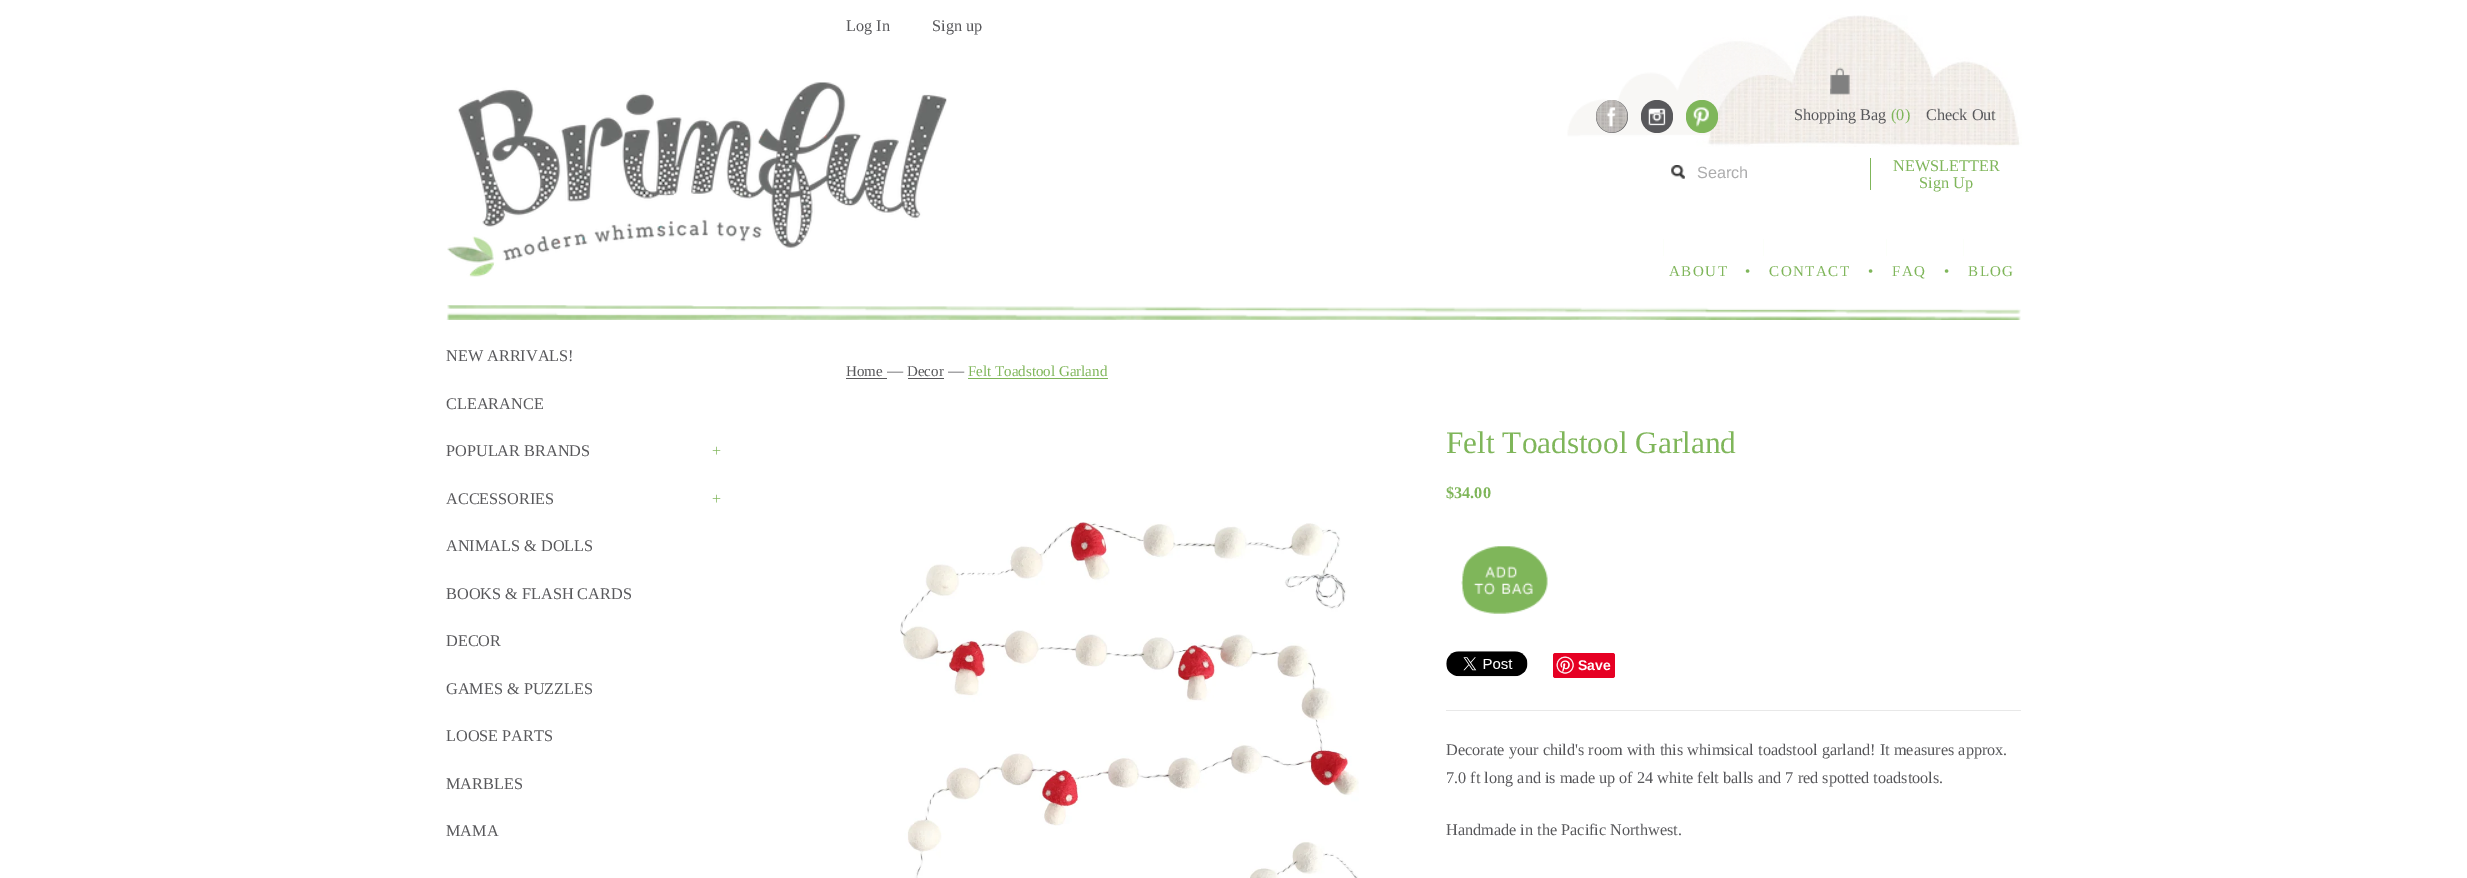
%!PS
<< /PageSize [2467 878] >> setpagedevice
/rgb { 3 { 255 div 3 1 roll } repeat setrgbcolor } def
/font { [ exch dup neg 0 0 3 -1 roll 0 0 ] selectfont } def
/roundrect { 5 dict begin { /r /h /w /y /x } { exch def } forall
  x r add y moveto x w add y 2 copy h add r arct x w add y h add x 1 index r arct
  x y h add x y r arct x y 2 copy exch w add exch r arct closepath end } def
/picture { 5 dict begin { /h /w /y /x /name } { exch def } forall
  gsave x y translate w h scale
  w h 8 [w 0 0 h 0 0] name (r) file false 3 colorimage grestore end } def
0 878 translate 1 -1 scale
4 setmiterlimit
255 255 255 rgb
0 0 2467 878 rectfill
(img/1.rgb) 1567 15 455 132 picture
(img/2.rgb) 1830 67 20 28 picture
88 88 91 rgb
1596 100 32 33 16 roundrect fill
(img/3.rgb) 1596 100 32 33 picture
(img/4.rgb) 1607 107 9 20 picture
1641 100 32 33 16 roundrect fill
(img/5.rgb) 1648 108 18 18 picture
127 182 90 rgb
1686 100 32 33 16 roundrect fill
(img/6.rgb) 1693 107 16 20 picture
(img/7.rgb) 446 305 1575 15 picture
(img/8.rgb) 447 82 500 195 picture
(img/9.rgb) 1671 165 14 14 picture
[
  [1870 158 1 32 127 182 90]
  [1663 239 1 17 252 255 250]
  [1763 239 1 17 252 255 250]
  [1886 239 1 17 252 255 250]
  [1963 239 1 17 252 255 250]
  [846 378 41 1 88 88 91]
  [908 378 36 1 88 88 91]
  [968 378 140 1 127 182 90]
] { aload pop rgb rectfill } forall
(img/10.rgb) 900 522 459 356 picture
(img/11.rgb) 1461 546 87 68 picture
(img/12.rgb) 1446 651 82 26 picture
230 0 35 rgb
1553 653 62 25 2.5 roundrect fill
(img/13.rgb) 1556 656 18 18 picture
232 232 232 rgb
1446 710 575 1 rectfill
/LiberationSerif-Regular 16.25 font
88 88 91 rgb
[
  [(Log In) 846 31]
  [(Sign up) 932 31]
  [(Shopping Bag) 1794 120]
] { aload pop moveto show } forall
127 182 90 rgb
1891 120 moveto (\(0\)) show
88 88 91 rgb
1926 120 moveto (Check Out) show
/LiberationSans-Regular 16.25 font
172 172 173 rgb
1697 178 moveto (Search) show
/LiberationSerif-Regular 16.25 font
127 182 90 rgb
1893 171 moveto (NEWSLETTER) show
1919 188 moveto (Sign Up) show
/LiberationSerif-Regular 15 font
1669 276 moveto 1.5 0 (ABOUT) ashow
1745 276 moveto (•) show
1769 276 moveto 1.5 0 (CONTACT) ashow
1868 276 moveto (•) show
1892 276 moveto 1.5 0 (FAQ) ashow
1944 276 moveto (•) show
1968 276 moveto 1.5 0 (BLOG) ashow
/LiberationSerif-Regular 16.25 font
88 88 91 rgb
[
  [(NEW ARRIVALS!) 446 361]
  [(CLEARANCE) 446 409]
  [(POPULAR BRANDS) 446 456]
] { aload pop moveto show } forall
127 182 90 rgb
712 456 moveto (+) show
88 88 91 rgb
446 504 moveto (ACCESSORIES) show
127 182 90 rgb
712 504 moveto (+) show
88 88 91 rgb
[
  [(ANIMALS & DOLLS) 446 551]
  [(BOOKS & FLASH CARDS) 446 599]
  [(DECOR) 446 646]
  [(GAMES & PUZZLES) 446 694]
  [(LOOSE PARTS) 446 741]
  [(MARBLES) 446 789]
  [(MAMA) 446 836]
] { aload pop moveto show } forall
/LiberationSerif-Regular 15 font
846 376 moveto (Home) show
/LiberationSerif-Regular 16.25 font
887 376 moveto (—) show
/LiberationSerif-Regular 15 font
907 376 moveto (Decor) show
/LiberationSerif-Regular 16.25 font
948 376 moveto (—) show
/LiberationSerif-Regular 15 font
127 182 90 rgb
968 376 moveto (Felt Toadstool Garland) show
/LiberationSerif-Regular 31.25 font
1446 453 moveto (Felt Toadstool Garland) show
/LiberationSerif-Bold 16.25 font
1446 498 moveto ($34.00) show
/LiberationSans-Bold 14 font
255 255 255 rgb
1578 670 moveto (Save) show
/LiberationSerif-Regular 16.25 font
88 88 91 rgb
[
  [(Decorate your child's room with this whimsical toadstool garland! It measures approx.) 1446 755]
  [(7.0 ft long and is made up of 24 white felt balls and 7 red spotted toadstools.) 1446 783]
  [(Handmade in the Pacific Northwest.) 1446 835]
] { aload pop moveto show } forall
showpage
